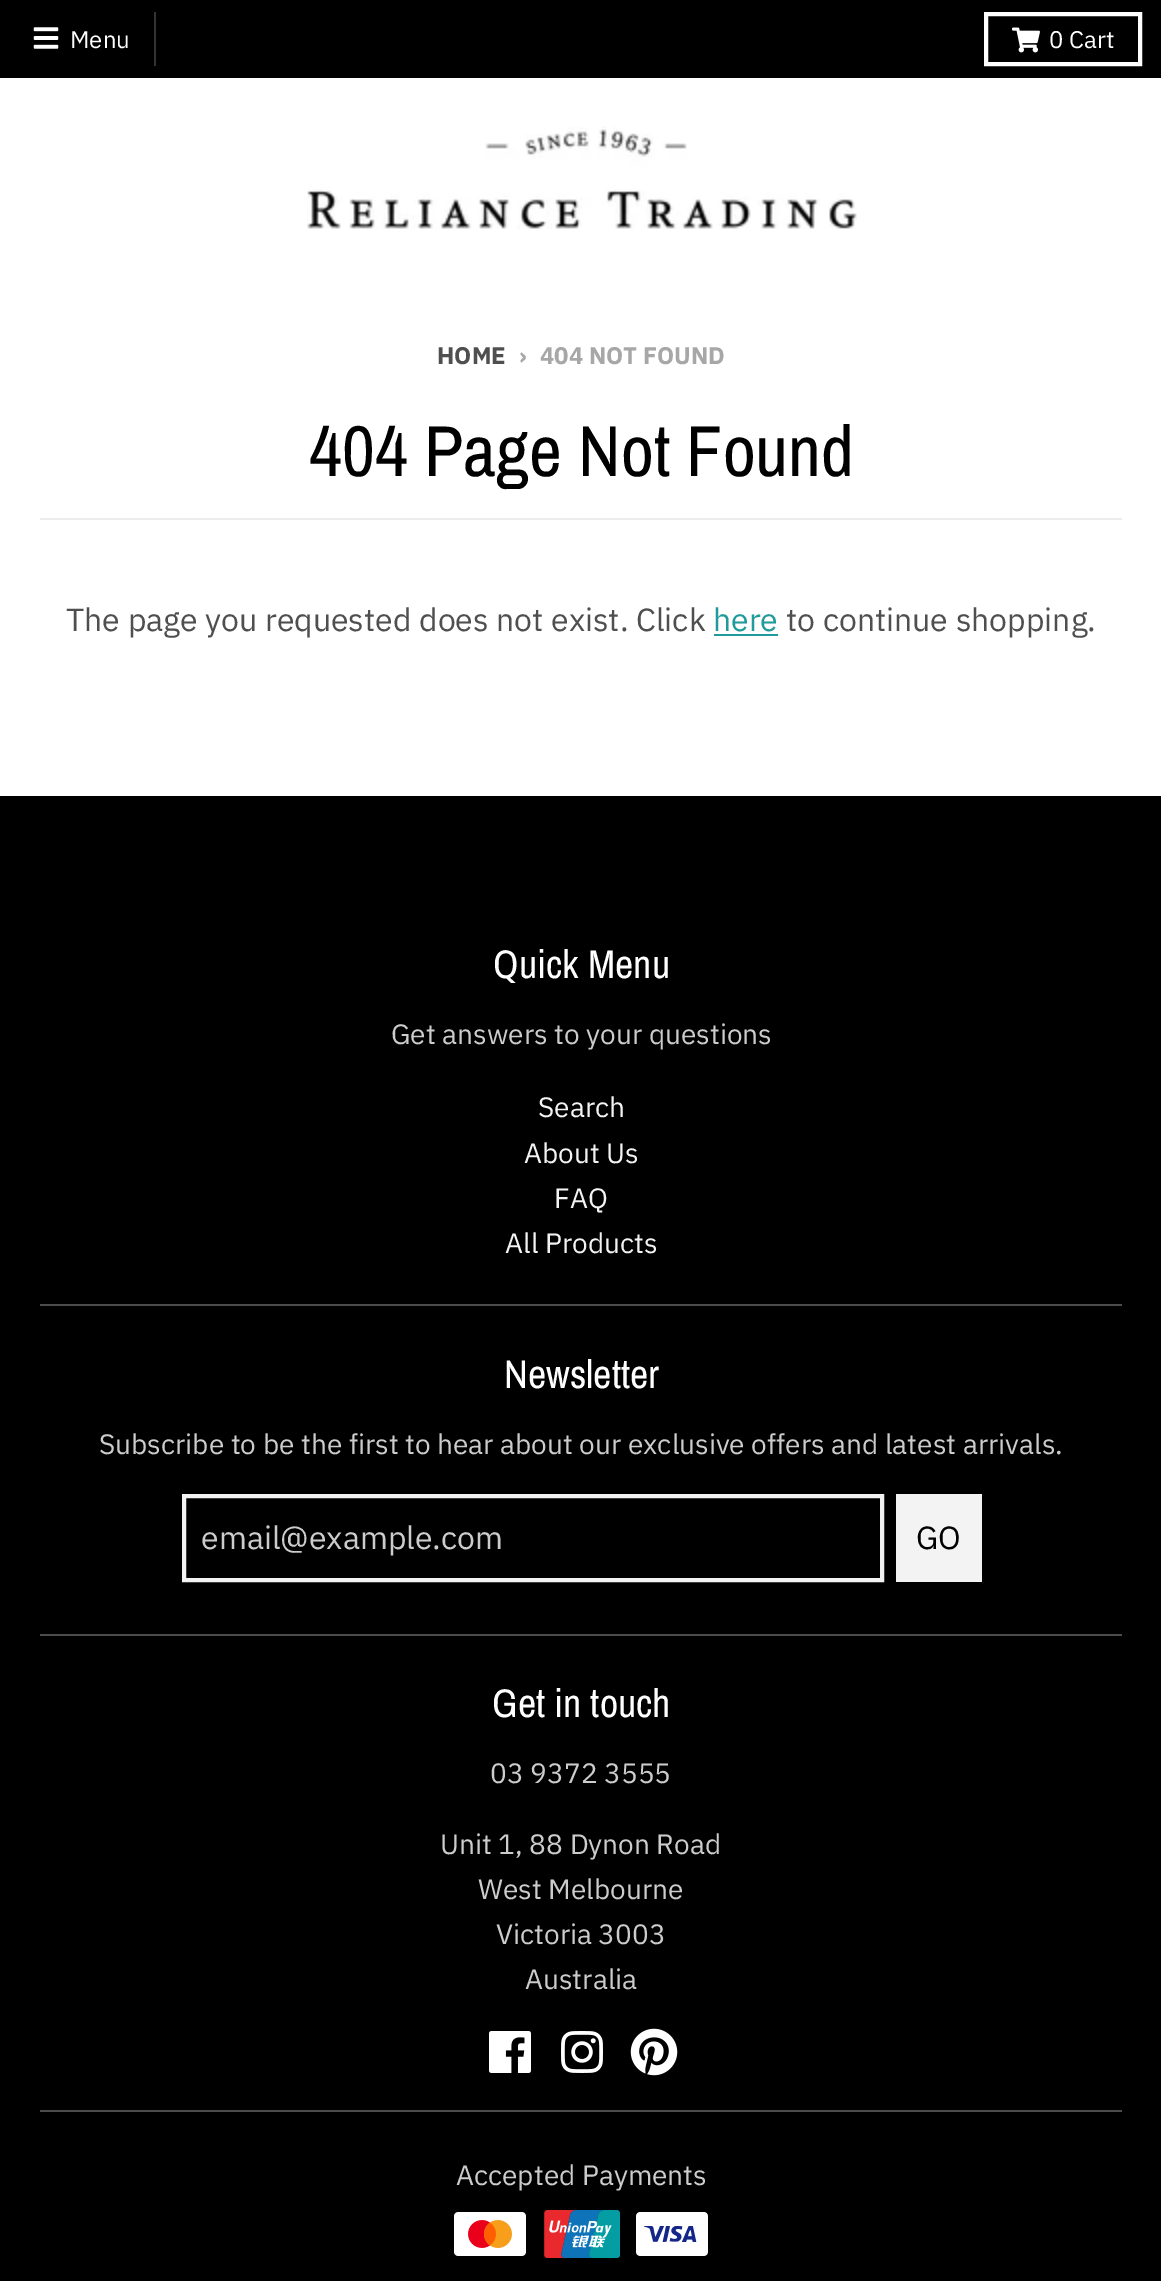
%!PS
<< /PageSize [1161 2281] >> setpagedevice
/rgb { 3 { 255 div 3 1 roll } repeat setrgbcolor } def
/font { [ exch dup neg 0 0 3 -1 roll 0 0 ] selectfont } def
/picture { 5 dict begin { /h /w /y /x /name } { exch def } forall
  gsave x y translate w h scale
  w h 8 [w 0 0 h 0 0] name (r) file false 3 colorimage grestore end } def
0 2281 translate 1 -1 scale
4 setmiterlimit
255 255 255 rgb
0 0 1161 2281 rectfill
0 0 0 rgb
0 0 1161 78 rectfill
51 51 51 rgb
154 12 2 54 rectfill
(img/1.rgb) 33 27 26 22 picture
255 255 255 rgb
4 setlinewidth
986 14 154 50 rectstroke
(img/2.rgb) 1012 27 28 26 picture
(img/3.rgb) 307 126 550 103 picture
[
  [40 518 1082 2 237 237 237]
  [714 634 64 2 32 154 154]
  [0 796 1161 1485 0 0 0]
  [40 1304 1082 2 76 76 76]
  [40 1634 1082 2 76 76 76]
] { aload pop rgb rectfill } forall
243 243 243 rgb
184 1496 698 84 rectstroke
896 1494 86 88 rectfill
(img/4.rgb) 489 2031 42 42 picture
(img/5.rgb) 561 2031 42 42 picture
(img/6.rgb) 630 2028 48 48 picture
76 76 76 rgb
40 2110 1082 2 rectfill
(img/7.rgb) 454 2212 72 44 picture
(img/8.rgb) 544 2210 76 48 picture
(img/9.rgb) 636 2212 72 44 picture
/IBMPlexSans-Regular 24 font
255 255 255 rgb
70 48 moveto (Menu) show
1049 48 moveto (0 Cart) show
/IBMPlexSans-Bold 24 font
79 79 79 rgb
437 364 moveto (HOME) show
167 167 167 rgb
519 364 moveto (›) show
540 364 moveto (404 NOT FOUND) show
/ArchivoNarrow-Regular 72 font
0 0 0 rgb
309 476 moveto (404 Page Not Found) show
/IBMPlexSans-Regular 32 font
79 79 79 rgb
66 631 moveto (The page you requested does not exist. Click) show
32 154 154 rgb
713 631 moveto (here) show
79 79 79 rgb
786 631 moveto (to continue shopping.) show
/ArchivoNarrow-Regular 40 font
255 255 255 rgb
493 978 moveto (Quick Menu) show
/IBMPlexSans-Regular 28 font
204 204 204 rgb
391 1044 moveto (Get answers to your questions) show
243 243 243 rgb
[
  [(Search) 538 1117]
  [(About Us) 524 1163]
  [(FAQ) 554 1208]
  [(All Products) 505 1253]
] { aload pop moveto show } forall
/ArchivoNarrow-Regular 40 font
255 255 255 rgb
504 1388 moveto (Newsletter) show
/IBMPlexSans-Regular 28 font
204 204 204 rgb
99 1454 moveto (Subscribe to be the first to hear about our exclusive offers and latest arrivals.) show
/IBMPlexSans-Regular 32 font
201 1549 moveto (email@example.com) show
0 0 0 rgb
916 1549 moveto (GO) show
/ArchivoNarrow-Regular 40 font
255 255 255 rgb
492 1717 moveto (Get in touch) show
/IBMPlexSans-Regular 28 font
204 204 204 rgb
[
  [(03 9372 3555) 490 1783]
  [(Unit 1, 88 Dynon Road) 440 1854]
  [(West Melbourne) 478 1899]
  [(Victoria 3003) 496 1944]
  [(Australia) 525 1989]
  [(Accepted Payments) 456 2185]
] { aload pop moveto show } forall
showpage
